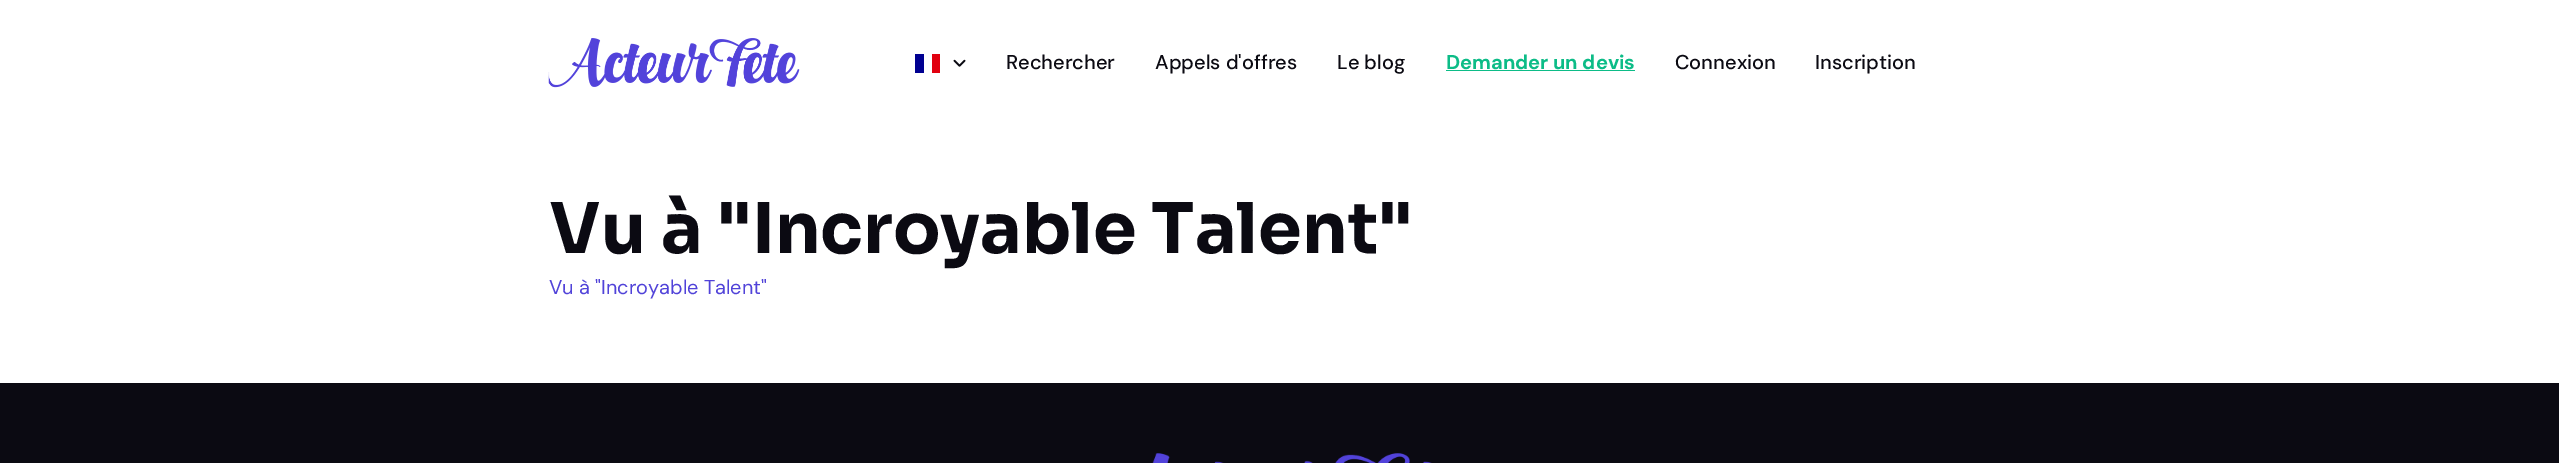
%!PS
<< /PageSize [2559 463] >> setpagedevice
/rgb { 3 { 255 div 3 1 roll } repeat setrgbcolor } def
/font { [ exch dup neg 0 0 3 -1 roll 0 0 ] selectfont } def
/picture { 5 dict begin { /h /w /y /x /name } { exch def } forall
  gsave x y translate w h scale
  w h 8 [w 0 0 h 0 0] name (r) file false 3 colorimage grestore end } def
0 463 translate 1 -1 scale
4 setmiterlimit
255 255 255 rgb
0 0 2559 463 rectfill
(img/1.rgb) 548 38 252 50 picture
0 0 145 rgb
915 54 9 19 rectfill
225 0 15 rgb
932 54 8 19 rectfill
(img/2.rgb) 953 59 13 8 picture
12 188 135 rgb
1446 70 189 1 rectfill
11 10 18 rgb
0 383 2559 80 rectfill
(img/3.rgb) 1152 453 280 10 picture
/DMSans-Medium 20 font
[
  [(Rechercher) 1006 69]
  [(Appels d'offres) 1155 69]
  [(Le blog) 1337 69]
] { aload pop moveto show } forall
/DMSans-Bold 20 font
12 188 135 rgb
1446 69 moveto (Demander un devis) show
/DMSans-Medium 20 font
11 10 18 rgb
1675 69 moveto (Connexion) show
1815 69 moveto (Inscription) show
/Sora-Bold 70 font
549 253 moveto (Vu à "Incroyable Talent") show
/DMSans-Regular 20 font
81 67 217 rgb
549 294 moveto (Vu à "Incroyable Talent") show
showpage
